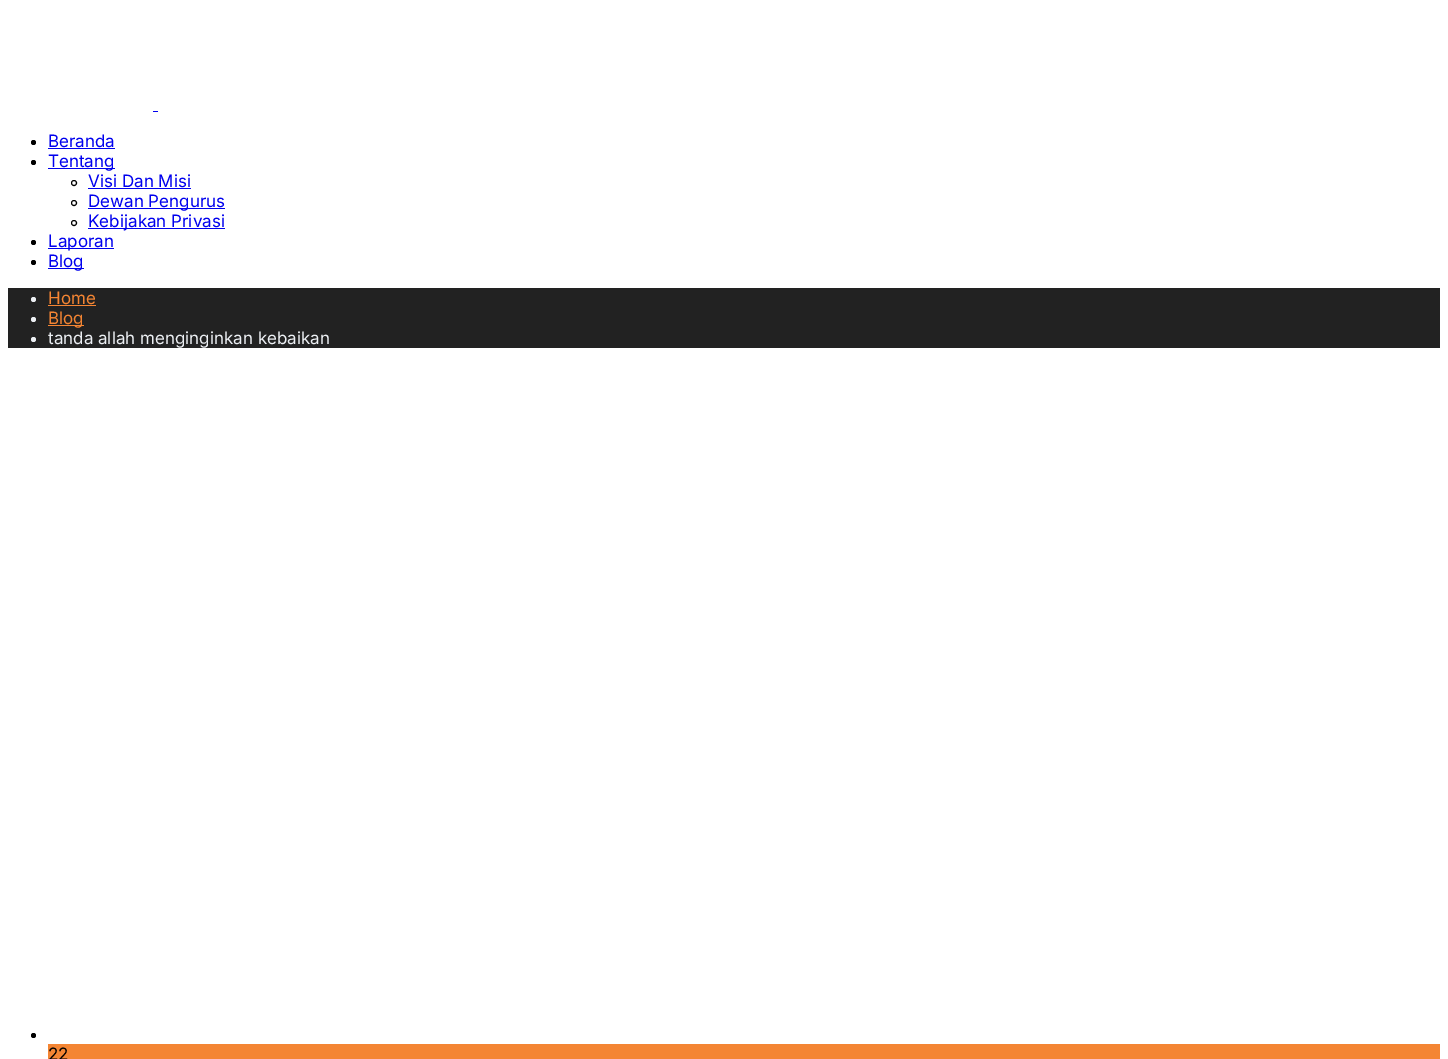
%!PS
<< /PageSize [1448 1059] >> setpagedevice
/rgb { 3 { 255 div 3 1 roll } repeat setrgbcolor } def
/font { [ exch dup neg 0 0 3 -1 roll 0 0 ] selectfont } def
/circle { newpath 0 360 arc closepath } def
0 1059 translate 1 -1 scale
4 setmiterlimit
255 255 255 rgb
0 0 1448 1059 rectfill
0 0 238 rgb
153 111 5 1 rectfill
0 0 0 rgb
33.5 142.5 2.5 circle fill
0 0 238 rgb
48 148 67 1 rectfill
0 0 0 rgb
33.5 162.5 2.5 circle fill
0 0 238 rgb
48 168 67 1 rectfill
0 0 0 rgb
74 183 2.5 circle stroke
0 0 238 rgb
88 188 103 1 rectfill
0 0 0 rgb
74 203 2.5 circle stroke
0 0 238 rgb
88 208 137 1 rectfill
0 0 0 rgb
74 223 2.5 circle stroke
0 0 238 rgb
88 228 137 1 rectfill
0 0 0 rgb
33.5 242.5 2.5 circle fill
0 0 238 rgb
48 248 66 1 rectfill
0 0 0 rgb
33.5 262.5 2.5 circle fill
0 0 238 rgb
48 268 36 1 rectfill
34 34 34 rgb
8 288 1432 60 rectfill
236 239 243 rgb
33.5 299.5 2.5 circle fill
244 133 51 rgb
48 305 48 1 rectfill
236 239 243 rgb
33.5 319.5 2.5 circle fill
244 133 51 rgb
48 325 36 1 rectfill
236 239 243 rgb
33.5 339.5 2.5 circle fill
0 0 0 rgb
33.5 1035.5 2.5 circle fill
244 133 51 rgb
48 1044 1392 15 rectfill
/Inter-Regular 17 font
0 0 238 rgb
[
  [(Beranda) 48 147]
  [(Tentang) 48 167]
  [(Visi Dan Misi) 88 187]
  [(Dewan Pengurus) 88 207]
  [(Kebijakan Privasi) 88 227]
  [(Laporan) 48 247]
  [(Blog) 48 267]
] { aload pop moveto show } forall
244 133 51 rgb
48 304 moveto (Home) show
48 324 moveto (Blog) show
236 239 243 rgb
48 344 moveto (tanda allah menginginkan kebaikan) show
0 0 0 rgb
48 1060 moveto (22) show
showpage
